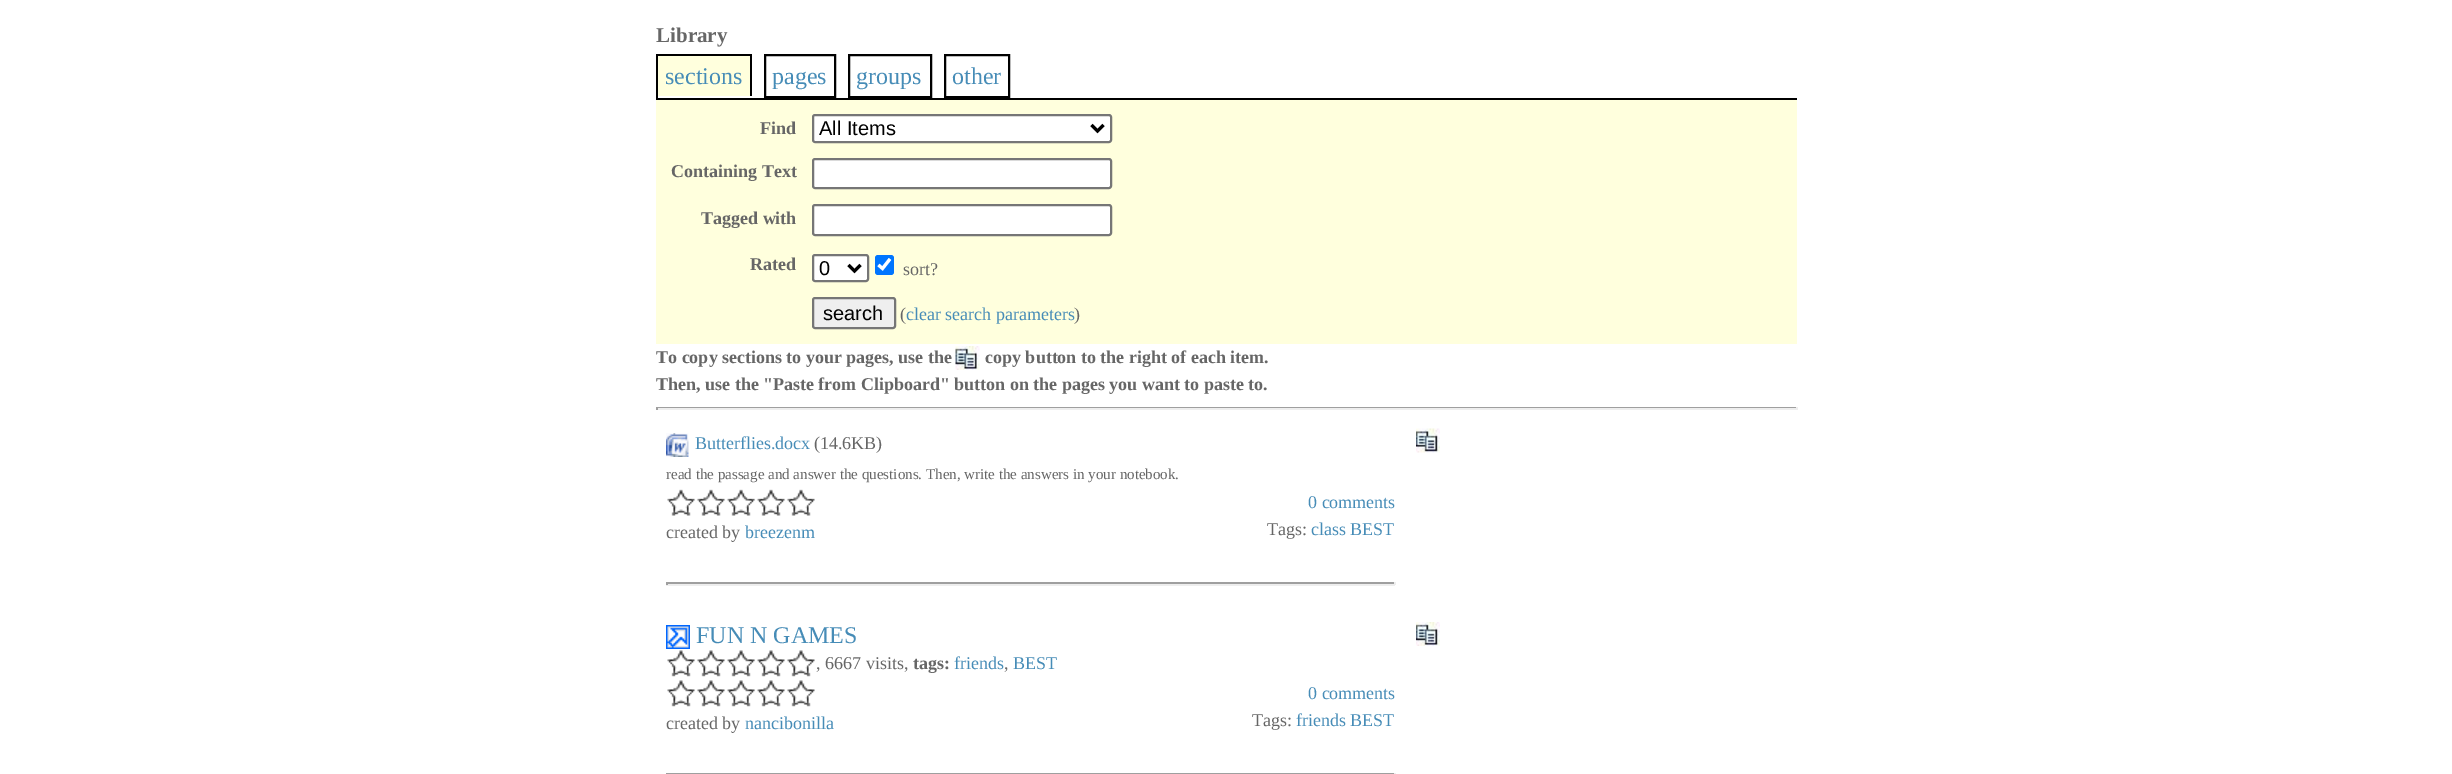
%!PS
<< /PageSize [2452 774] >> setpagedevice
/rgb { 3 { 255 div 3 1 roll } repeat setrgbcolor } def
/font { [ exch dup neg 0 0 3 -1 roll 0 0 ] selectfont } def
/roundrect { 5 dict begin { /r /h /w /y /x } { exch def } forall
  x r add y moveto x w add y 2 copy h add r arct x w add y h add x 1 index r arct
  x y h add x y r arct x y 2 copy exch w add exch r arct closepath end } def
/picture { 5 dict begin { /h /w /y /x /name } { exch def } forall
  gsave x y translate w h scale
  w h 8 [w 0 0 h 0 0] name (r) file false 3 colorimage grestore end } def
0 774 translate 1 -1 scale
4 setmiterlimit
255 255 255 rgb
0 0 2452 774 rectfill
[
  [658 56 92 40 255 255 221]
  [656 54 96 2 0 0 0]
  [750 54 2 44 0 0 0]
  [750 96 2 2 255 255 255]
  [656 54 2 44 0 0 0]
] { aload pop rgb rectfill } forall
2 setlinewidth
765 55 70 42 rectstroke
849 55 82 42 rectstroke
945 55 64 42 rectstroke
255 255 221 rgb
656 100 1141 244 rectfill
0 0 0 rgb
656 98 1141 2 rectfill
255 255 255 rgb
813 115 298 27 2 roundrect gsave fill grestore
118 118 118 rgb
stroke
0 0 0 rgb
3 setlinewidth
1091.5 125 moveto 1097.5 131 lineto 1103.5 125 lineto stroke
255 255 255 rgb
813 159 298 29 2 roundrect gsave fill grestore
118 118 118 rgb
2 setlinewidth
stroke
255 255 255 rgb
813 205 298 30 2 roundrect gsave fill grestore
118 118 118 rgb
stroke
255 255 255 rgb
813 255 55 26 2 roundrect gsave fill grestore
118 118 118 rgb
stroke
0 0 0 rgb
3 setlinewidth
848.5 265 moveto 854.5 271 lineto 860.5 265 lineto stroke
0 117 255 rgb
875 255 19 20 3 roundrect fill
255 255 255 rgb
3.1 setlinewidth
878.5 265 moveto 882.5 268.5 lineto 890 259 lineto stroke
239 239 239 rgb
813 298 82 30 2 roundrect gsave fill grestore
118 118 118 rgb
2 setlinewidth
stroke
(img/1.rgb) 955 346 25 24 picture
[
  [656 407 1141 1 159 159 159]
  [1796 407 2 3 238 238 238]
  [656 408 1141 2 238 238 238]
  [656 407 2 3 159 159 159]
] { aload pop rgb rectfill } forall
(img/2.rgb) 666 433 23 24 picture
(img/3.rgb) 1416 428 24 25 picture
(img/4.rgb) 667 489 28 27 picture
(img/4.rgb) 697 489 28 27 picture
(img/5.rgb) 727 489 28 27 picture
(img/6.rgb) 757 489 28 27 picture
(img/4.rgb) 787 489 28 27 picture
[
  [666 582 729 2 159 159 159]
  [1394 582 2 3 238 238 238]
  [666 584 729 2 238 238 238]
  [666 582 2 3 159 159 159]
] { aload pop rgb rectfill } forall
(img/7.rgb) 666 625 24 24 picture
(img/8.rgb) 667 650 28 27 picture
(img/8.rgb) 697 650 28 27 picture
(img/9.rgb) 727 650 28 27 picture
(img/10.rgb) 757 650 28 27 picture
(img/8.rgb) 787 650 28 27 picture
(img/11.rgb) 1416 622 24 24 picture
(img/8.rgb) 667 680 28 27 picture
(img/8.rgb) 697 680 28 27 picture
(img/9.rgb) 727 680 28 27 picture
(img/10.rgb) 757 680 28 27 picture
(img/8.rgb) 787 680 28 27 picture
666 773 729 1 rectfill
238 238 238 rgb
1394 773 2 1 rectfill
/LiberationSerif-Bold 21 font
102 102 102 rgb
656 42 moveto (Library) show
/LiberationSerif-Regular 24 font
70 140 183 rgb
[
  [(sections) 665 84]
  [(pages) 772 84]
  [(groups) 856 84]
  [(other) 952 84]
] { aload pop moveto show } forall
/LiberationSerif-Bold 18 font
102 102 102 rgb
760 134 moveto (Find) show
/LiberationSans-Regular 20 font
0 0 0 rgb
819 135 moveto (All Items) show
/LiberationSerif-Bold 18 font
102 102 102 rgb
[
  [(Containing Text) 671 177]
  [(Tagged with) 701 224]
  [(Rated) 750 270]
] { aload pop moveto show } forall
/LiberationSans-Regular 20 font
0 0 0 rgb
819 275 moveto (0) show
/LiberationSerif-Regular 18 font
102 102 102 rgb
903 275 moveto (sort?) show
/LiberationSans-Regular 20 font
0 0 0 rgb
823 320 moveto (search) show
/LiberationSerif-Regular 18 font
102 102 102 rgb
900 320 moveto (\() show
70 140 183 rgb
906 320 moveto (clear search parameters) show
102 102 102 rgb
1074 320 moveto (\)) show
/LiberationSerif-Bold 18 font
[
  [(To copy sections to your pages, use the) 656 363]
  [(copy button to the right of each item.) 985 363]
  [(Then, use the "Paste from Clipboard" button on the pages you want to paste to.) 656 390]
] { aload pop moveto show } forall
/LiberationSerif-Regular 18 font
70 140 183 rgb
695 449 moveto (Butterflies.docx) show
102 102 102 rgb
814 449 moveto (\(14.6KB\)) show
/LiberationSerif-Regular 15 font
666 479 moveto (read the passage and answer the questions. Then, write the answers in your notebook.) show
/LiberationSerif-Regular 18 font
70 140 183 rgb
1308 508 moveto (0 comments) show
102 102 102 rgb
666 538 moveto (created by) show
70 140 183 rgb
745 538 moveto (breezenm) show
102 102 102 rgb
1267 535 moveto (Tags:) show
70 140 183 rgb
1311 535 moveto (class BEST) show
/LiberationSerif-Regular 24 font
696 643 moveto (FUN N GAMES) show
/LiberationSerif-Regular 18 font
102 102 102 rgb
816 669 moveto (, 6667 visits,) show
/LiberationSerif-Bold 18 font
913 669 moveto (tags:) show
/LiberationSerif-Regular 18 font
70 140 183 rgb
954 669 moveto (friends) show
102 102 102 rgb
1004 669 moveto (,) show
70 140 183 rgb
1013 669 moveto (BEST) show
1308 699 moveto (0 comments) show
102 102 102 rgb
666 729 moveto (created by) show
70 140 183 rgb
745 729 moveto (nancibonilla) show
102 102 102 rgb
1252 726 moveto (Tags:) show
70 140 183 rgb
1296 726 moveto (friends BEST) show
showpage
